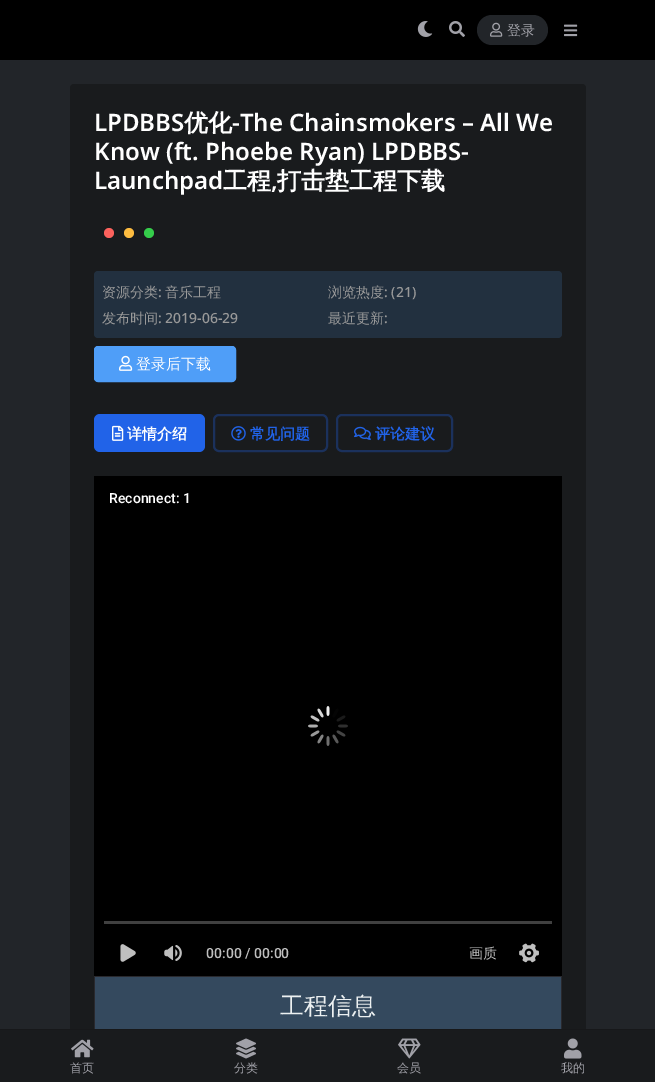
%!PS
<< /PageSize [655 1082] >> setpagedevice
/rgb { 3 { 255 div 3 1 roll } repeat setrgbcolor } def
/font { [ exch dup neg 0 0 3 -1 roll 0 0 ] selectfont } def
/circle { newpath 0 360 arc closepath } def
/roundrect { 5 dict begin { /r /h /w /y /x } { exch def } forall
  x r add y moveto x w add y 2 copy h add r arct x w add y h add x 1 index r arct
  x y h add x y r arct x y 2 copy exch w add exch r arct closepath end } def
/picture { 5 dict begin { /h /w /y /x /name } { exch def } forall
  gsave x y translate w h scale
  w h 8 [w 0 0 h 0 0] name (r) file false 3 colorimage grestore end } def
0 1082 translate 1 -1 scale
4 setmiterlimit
34 37 41 rgb
0 0 655 1082 rectfill
0 0 0 rgb
0 0 655 60 rectfill
(img/1.rgb) 417 21 16 16 picture
(img/2.rgb) 449 21 16 16 picture
34 37 41 rgb
477 15 71 30 15 roundrect fill
(img/3.rgb) 490 22 13 15 picture
(img/4.rgb) 564 24 14 13 picture
25 27 29 rgb
70 84 516 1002 4 roundrect fill
53 205 75 rgb
149 233 5 circle fill
253 188 64 rgb
129 233 5 circle fill
252 98 93 rgb
109 233 5 circle fill
34 48 63 rgb
94 271 468 67 4 roundrect fill
79 158 248 rgb
94.5 346.5 141 35 3.5 roundrect gsave fill grestore
stroke
(img/5.rgb) 119 355 14 16 picture
33 99 232 rgb
94 414 111 38 6 roundrect fill
(img/6.rgb) 112 425 12 16 picture
27 49 92 rgb
2 setlinewidth
214 415 113 36 5 roundrect stroke
(img/7.rgb) 231 426 15 15 picture
337 415 115 36 5 roundrect stroke
(img/8.rgb) 354 426 17 14 picture
0 0 0 rgb
94 476 468 500 rectfill
(img/9.rgb) 308 706 40 40 picture
64 64 64 rgb
104 921 448 3 rectfill
(img/10.rgb) 120 944 16 18 picture
(img/11.rgb) 164 945 18 16 picture
(img/12.rgb) 519 943 20 20 picture
[
  [94 976 468 1 41 41 46]
  [95 977 466 52 52 73 94]
  [561 976 1 61 41 41 46]
  [94 976 1 61 41 41 46]
  [0 1029 655 53 25 27 29]
] { aload pop rgb rectfill } forall
23 24 26 rgb
0 1029 655 1 0.5 roundrect fill
(img/13.rgb) 71 1039 23 19 picture
(img/14.rgb) 236 1038 20 21 picture
(img/15.rgb) 398 1038 23 21 picture
(img/16.rgb) 564 1038 18 21 picture
/WenQuanYiZenHei-Medium 14 font
161 161 168 rgb
507 35 moveto (登录) show
/NotoSans-SemiBold 24 font
255 255 255 rgb
94 131 moveto (LPDBBS) show
/WenQuanYiZenHei-Bold 24 font
184 131 moveto (优化) show
/NotoSans-SemiBold 24 font
[
  [(-The Chainsmokers – All We) 232 131]
  [(Know \(ft. Phoebe Ryan\) LPDBBS-) 94 160]
  [(Launchpad) 94 189]
] { aload pop moveto show } forall
/WenQuanYiZenHei-Bold 24 font
223 189 moveto (工程) show
/NotoSans-SemiBold 24 font
271 189 moveto (,) show
/WenQuanYiZenHei-Bold 24 font
277 189 moveto (打击垫工程下载) show
/WenQuanYiZenHei-Medium 14 font
153 153 153 rgb
102 297 moveto (资源分类) show
/NotoSans-Medium 14 font
158 297 moveto (:) show
/WenQuanYiZenHei-Medium 14 font
165 297 moveto (音乐工程) show
328 297 moveto (浏览热度) show
/NotoSans-Medium 14 font
384 297 moveto (: \(21\)) show
/WenQuanYiZenHei-Medium 14 font
102 323 moveto (发布时间) show
/NotoSans-Medium 14 font
158 323 moveto (: 2019-06-29) show
/WenQuanYiZenHei-Medium 14 font
328 323 moveto (最近更新) show
/NotoSans-Medium 14 font
384 323 moveto (:) show
/WenQuanYiZenHei-Medium 15 font
255 255 255 rgb
136 369 moveto (登录后下载) show
/WenQuanYiZenHei-Bold 15 font
127 439 moveto (详情介绍) show
33 99 232 rgb
250 439 moveto (常见问题) show
375 439 moveto (评论建议) show
/Roboto-Medium 14 font
255 255 255 rgb
109 503 moveto (Reconnect: 1) show
191 191 191 rgb
206 958 moveto (00:00 / 00:00) show
/WenQuanYiZenHei-Medium 14 font
469 958 moveto (画质) show
/WenQuanYiZenHei-Medium 24 font
236 240 241 rgb
280 1014 moveto (工程信息) show
/WenQuanYiZenHei-Medium 12 font
161 161 168 rgb
[
  [(首页) 70 1072]
  [(分类) 234 1072]
  [(会员) 397 1072]
  [(我的) 561 1072]
] { aload pop moveto show } forall
showpage
